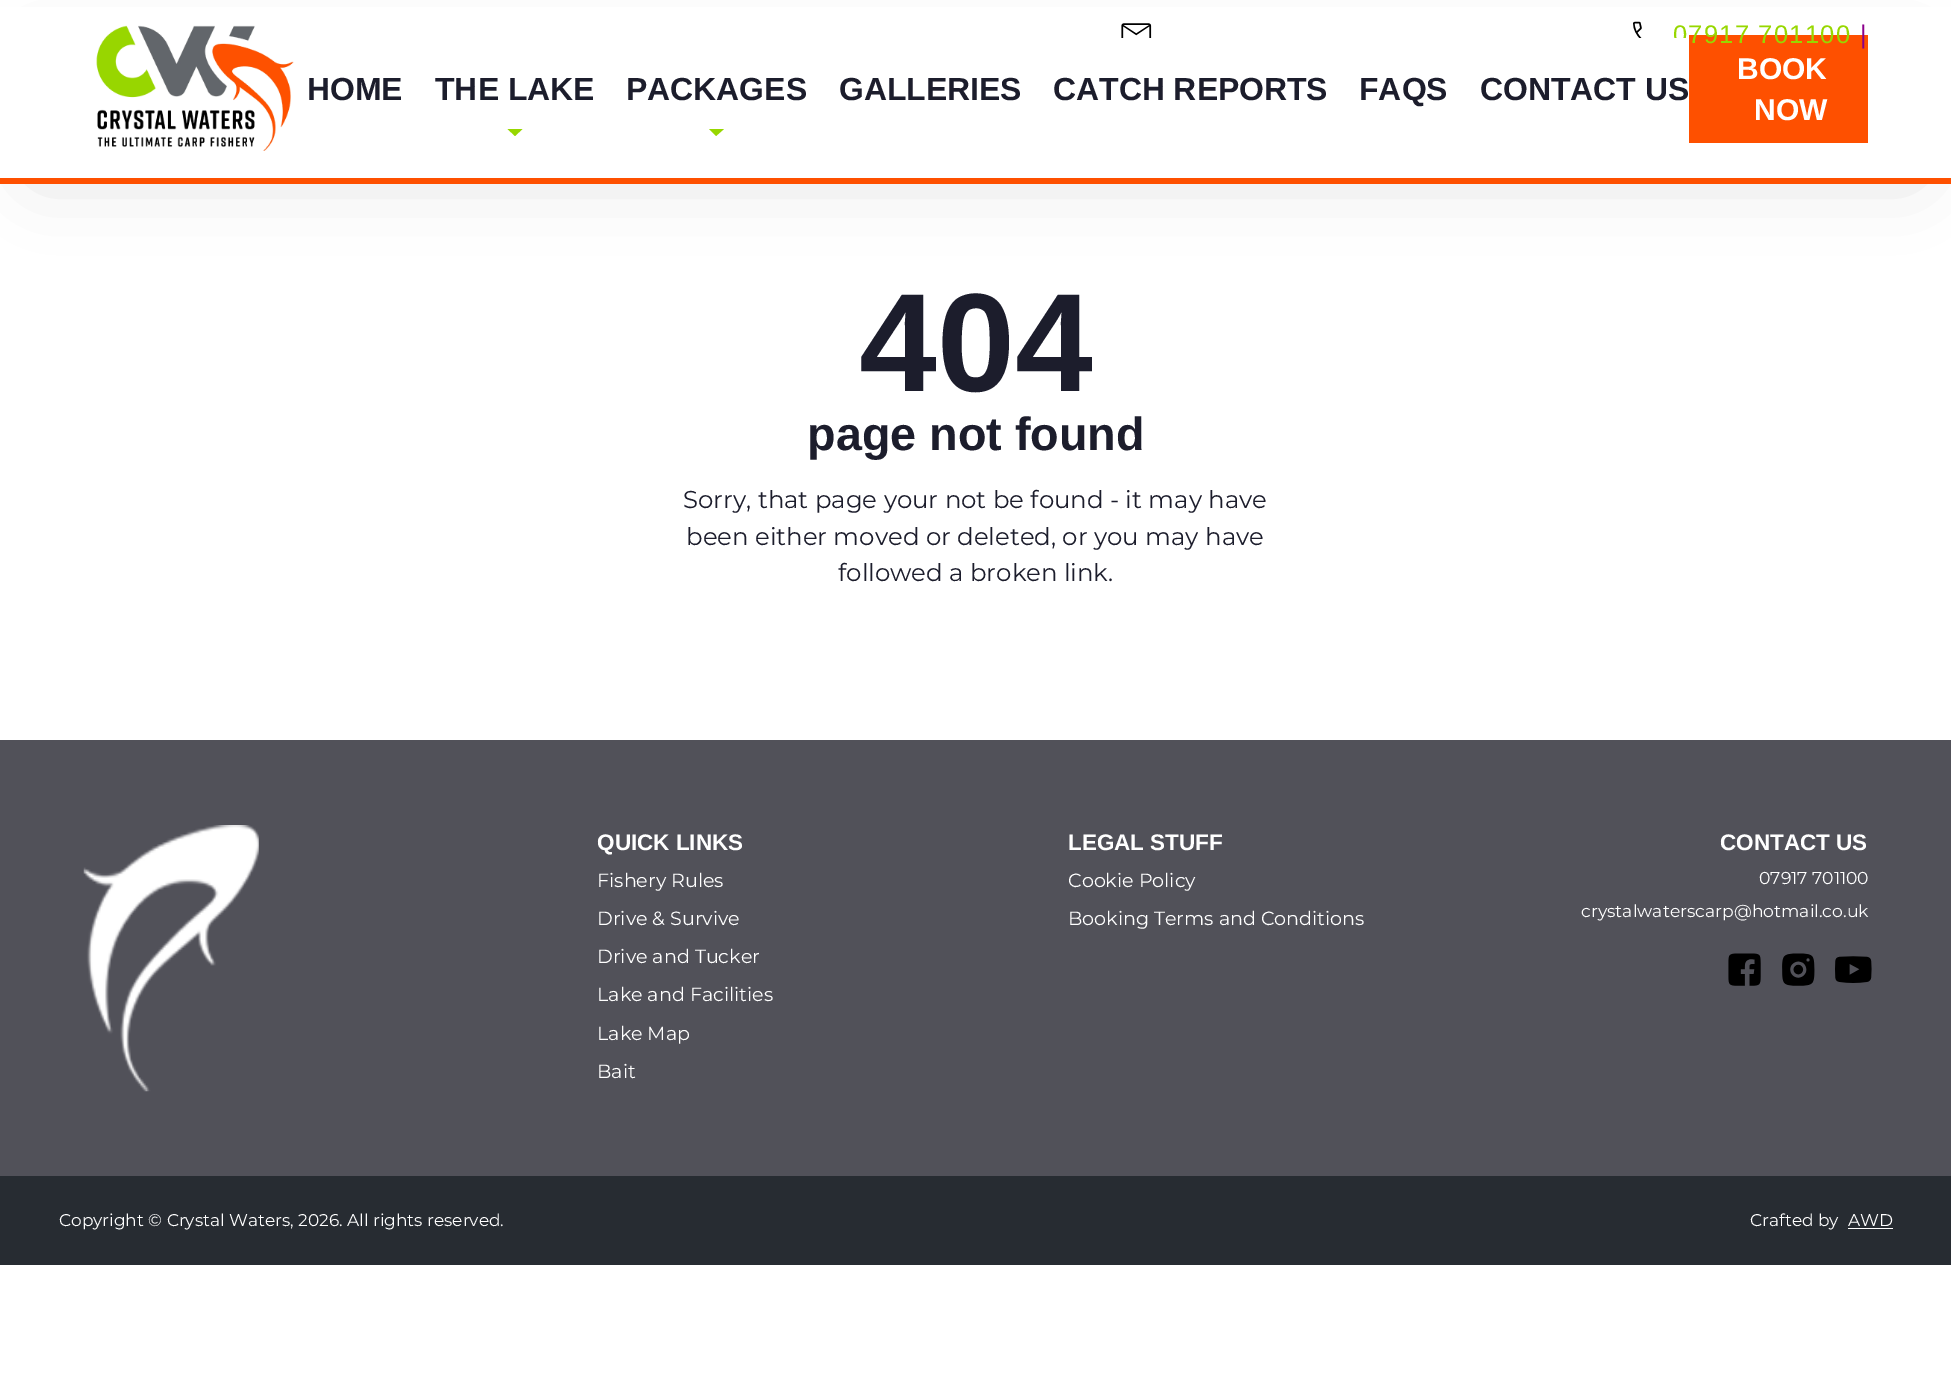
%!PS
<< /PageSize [1951 1377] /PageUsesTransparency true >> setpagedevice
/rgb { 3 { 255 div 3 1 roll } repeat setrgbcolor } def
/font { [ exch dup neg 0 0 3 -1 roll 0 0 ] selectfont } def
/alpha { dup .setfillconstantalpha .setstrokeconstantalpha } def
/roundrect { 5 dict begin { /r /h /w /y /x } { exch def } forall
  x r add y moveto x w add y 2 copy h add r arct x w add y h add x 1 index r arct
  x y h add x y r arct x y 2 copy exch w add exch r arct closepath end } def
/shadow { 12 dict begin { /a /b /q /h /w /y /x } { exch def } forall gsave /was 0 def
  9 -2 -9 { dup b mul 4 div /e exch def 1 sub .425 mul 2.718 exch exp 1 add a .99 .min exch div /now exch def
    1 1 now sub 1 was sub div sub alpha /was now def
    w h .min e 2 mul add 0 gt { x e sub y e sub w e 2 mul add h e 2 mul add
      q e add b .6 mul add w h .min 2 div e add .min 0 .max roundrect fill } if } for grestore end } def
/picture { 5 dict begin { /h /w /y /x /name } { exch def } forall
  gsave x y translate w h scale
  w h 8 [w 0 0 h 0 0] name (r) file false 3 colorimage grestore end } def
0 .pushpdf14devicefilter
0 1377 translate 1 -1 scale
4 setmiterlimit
255 255 255 rgb
0 0 1951 1377 rectfill
0 0 0 rgb
38 63 1876 108 0 37.5 0.15 shadow
255 255 255 rgb
0 7 1951 171 rectfill
254 80 0 rgb
0 178 1951 6 rectfill
(img/1.rgb) 1121 23 31 15 picture
(img/2.rgb) 1633 21 9 17 picture
(img/3.rgb) 96 25 198 126 picture
151 215 0 rgb
507.5 129 moveto 522.5 129 lineto 515 136 lineto closepath fill
709 129 moveto 724 129 lineto 716 136 lineto closepath fill
254 80 0 rgb
1689 35 179 108 rectfill
81 81 89 rgb
0 740 1951 436 rectfill
(img/4.rgb) 83 825 176 267 picture
(img/5.rgb) 1728 953 33 33 picture
(img/6.rgb) 1782 953 33 33 picture
(img/7.rgb) 1835 956 37 27 picture
39 44 50 rgb
0 1176 1951 89 rectfill
255 255 255 rgb
1848 1228 45 1 rectfill
/LiberationSans-Regular 25.5 font
151 215 0 rgb
1673 43 moveto 1.25 0 (07917 701100) ashow
139 0 139 rgb
1860 43 moveto 1.25 0 (|) ashow
255 255 255 rgb
1674 38 13 6 rectfill
/LiberationSans-Bold 31.9 font
28 29 44 rgb
[
  [(HOME) 307 100]
  [(THE LAKE) 435 100]
  [(PACKAGES) 626 100]
  [(GALLERIES) 839 100]
  [(CATCH REPORTS) 1053 100]
  [(FAQS) 1359 100]
  [(CONTACT US) 1480 100]
] { aload pop moveto show } forall
/LiberationSans-Bold 30 font
255 255 255 rgb
1737 79 moveto (BOOK) show
1754 120 moveto (NOW) show
/LiberationSans-Bold 140 font
28 29 44 rgb
859 391 moveto (404) show
/LiberationSans-Bold 46.75 font
807 450 moveto (page not found) show
/Montserrat-Regular 24.4 font
[
  [(Sorry, that page your not be found - it may have) 683 508]
  [(been either moved or deleted, or you may have) 686 545]
  [(followed a broken link.) 838 581]
] { aload pop moveto show } forall
/LiberationSans-Bold 22.5 font
255 255 255 rgb
597 850 moveto (QUICK LINKS) show
/Montserrat-Regular 19.1 font
[
  [(Fishery Rules) 597 887]
  [(Drive & Survive) 597 925]
  [(Drive and Tucker) 597 963]
  [(Lake and Facilities) 597 1001]
  [(Lake Map) 597 1040]
  [(Bait) 597 1078]
] { aload pop moveto show } forall
/LiberationSans-Bold 22.5 font
1068 850 moveto (LEGAL STUFF) show
/Montserrat-Regular 19.1 font
1068 887 moveto (Cookie Policy) show
1068 925 moveto (Booking Terms and Conditions) show
/LiberationSans-Bold 22.5 font
1720 850 moveto (CONTACT US) show
/Montserrat-Regular 17.25 font
1759 884 moveto (07917 701100) show
1581 917 moveto (crystalwaterscarp@hotmail.co.uk) show
/Montserrat-Regular 17 font
[
  [(Copyright © Crystal Waters, 2026. All rights reserved.) 59 1226]
  [(Crafted by) 1750 1226]
  [(AWD) 1848 1226]
] { aload pop moveto show } forall
.poppdf14devicefilter showpage
